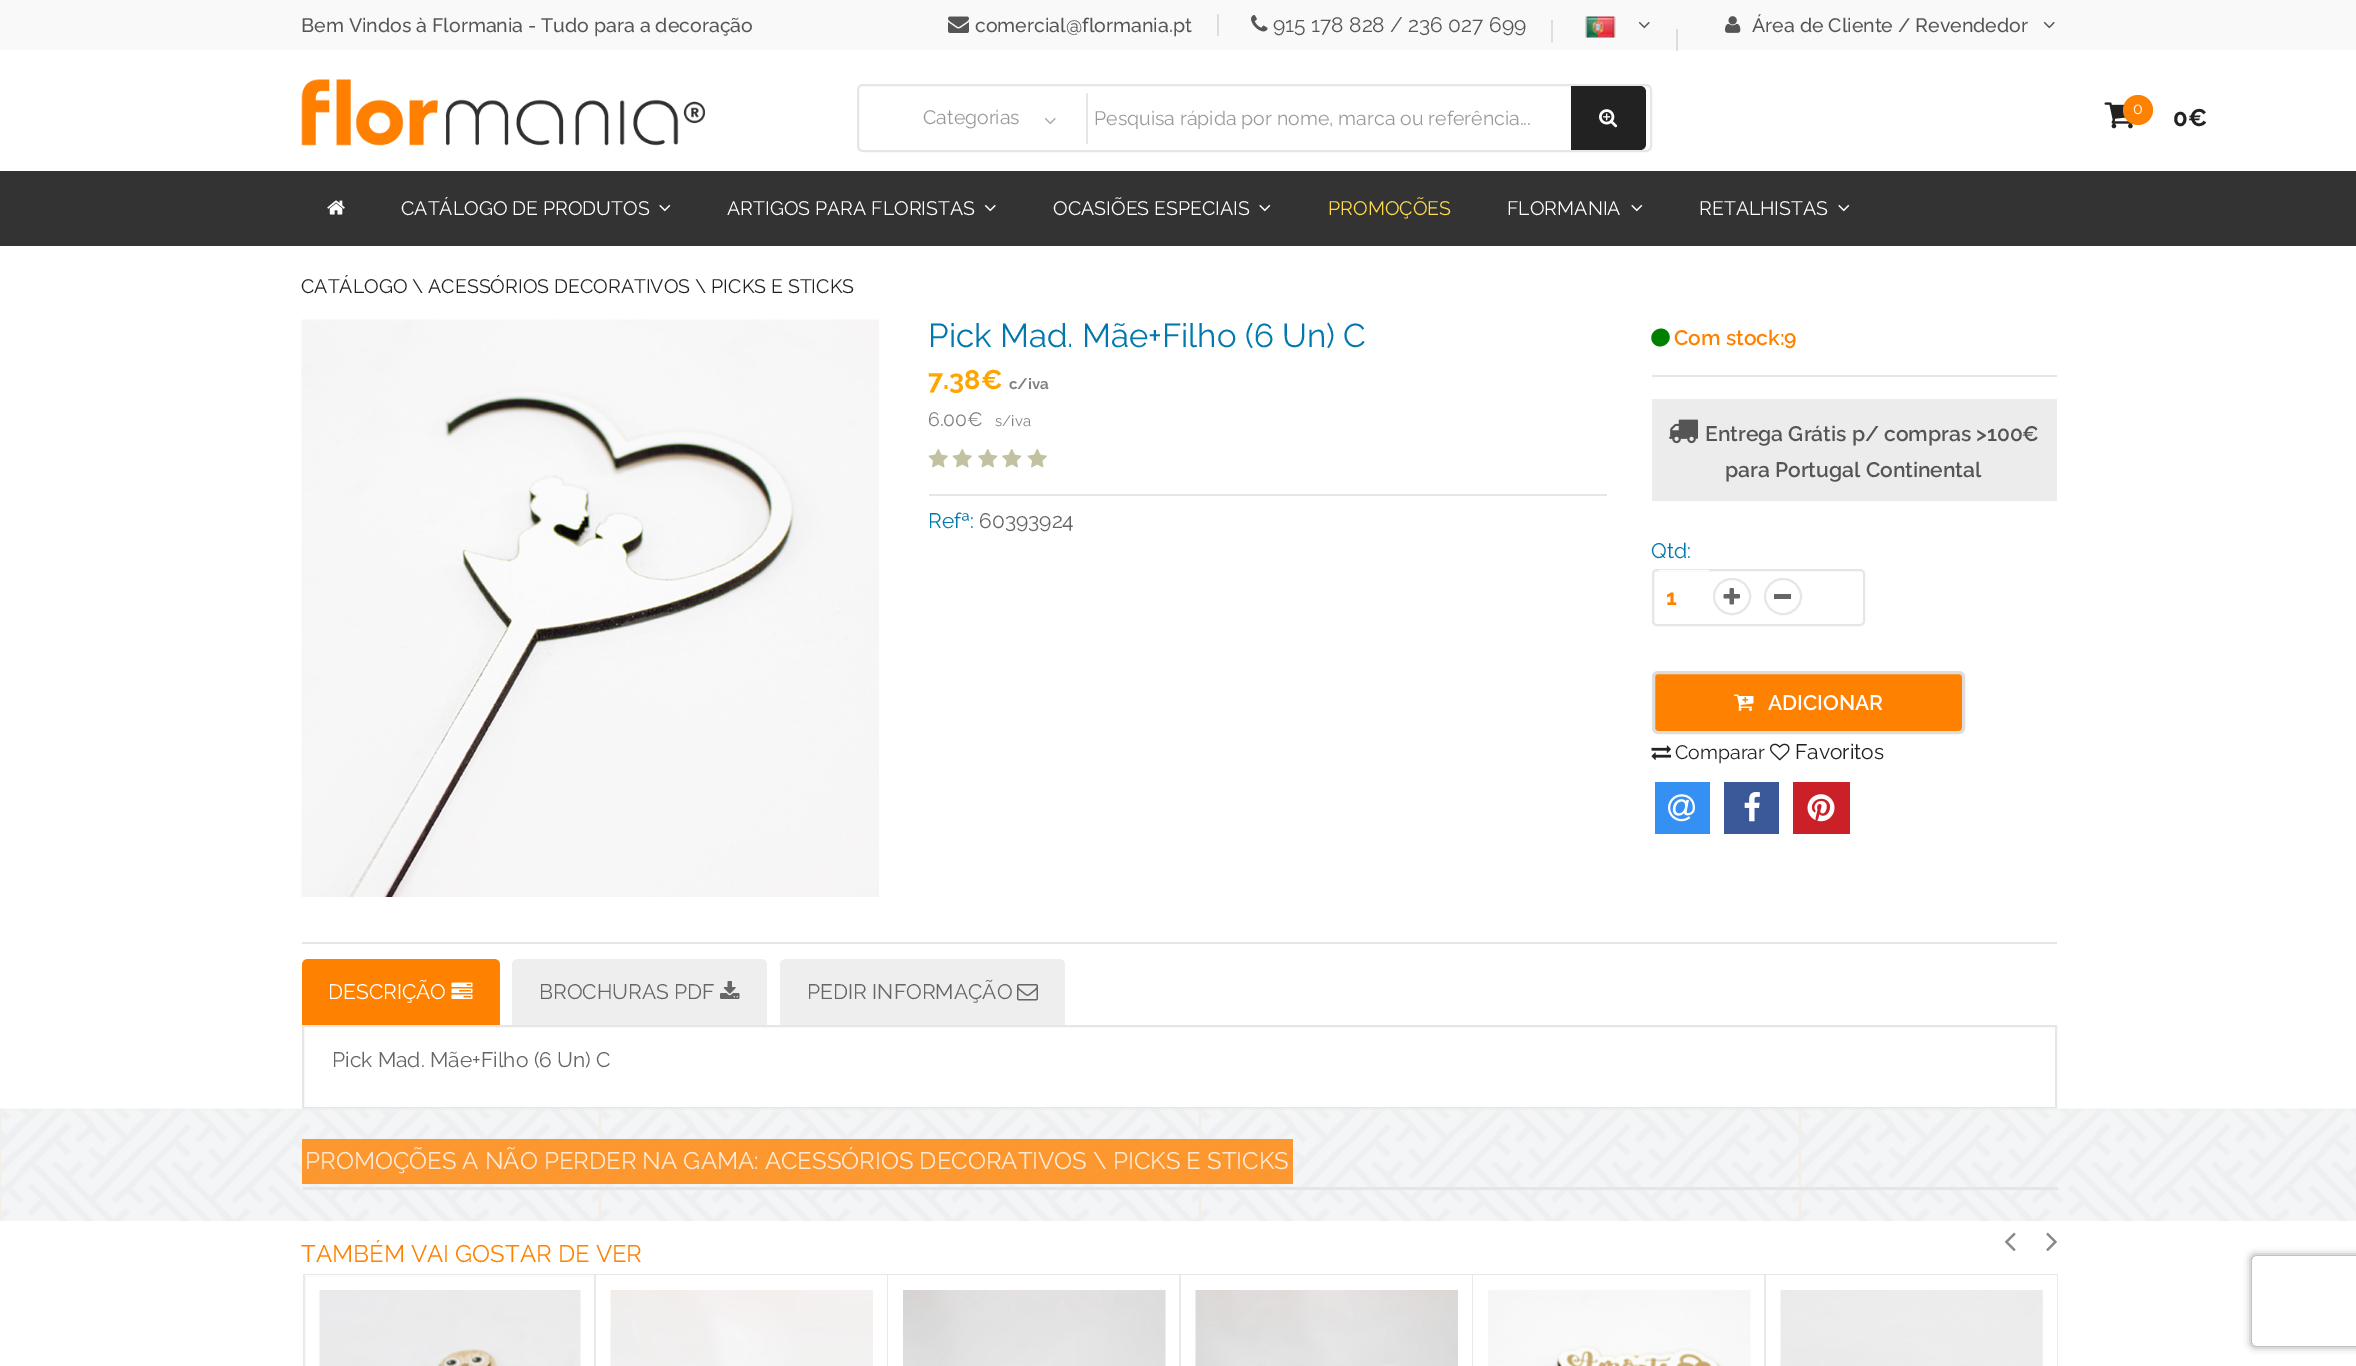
%!PS
<< /PageSize [2356 1366] /PageUsesTransparency true >> setpagedevice
/rgb { 3 { 255 div 3 1 roll } repeat setrgbcolor } def
/font { [ exch dup neg 0 0 3 -1 roll 0 0 ] selectfont } def
/alpha { dup .setfillconstantalpha .setstrokeconstantalpha } def
/circle { newpath 0 360 arc closepath } def
/roundrect { 5 dict begin { /r /h /w /y /x } { exch def } forall
  x r add y moveto x w add y 2 copy h add r arct x w add y h add x 1 index r arct
  x y h add x y r arct x y 2 copy exch w add exch r arct closepath end } def
/shadow { 12 dict begin { /a /b /q /h /w /y /x } { exch def } forall gsave /was 0 def
  9 -2 -9 { dup b mul 4 div /e exch def 1 sub .425 mul 2.718 exch exp 1 add a .99 .min exch div /now exch def
    1 1 now sub 1 was sub div sub alpha /was now def
    w h .min e 2 mul add 0 gt { x e sub y e sub w e 2 mul add h e 2 mul add
      q e add b .6 mul add w h .min 2 div e add .min 0 .max roundrect fill } if } for grestore end } def
/picture { 5 dict begin { /h /w /y /x /name } { exch def } forall
  gsave x y translate w h scale
  w h 8 [w 0 0 h 0 0] name (r) file false 3 colorimage grestore end } def
0 .pushpdf14devicefilter
0 1366 translate 1 -1 scale
4 setmiterlimit
255 255 255 rgb
0 0 2356 1366 rectfill
249 249 249 rgb
0 0 2356 50 rectfill
(img/1.rgb) 948 16 21 17 picture
221 221 221 rgb
1217 14 2 22 rectfill
(img/2.rgb) 1251 15 17 17 picture
1551 20 2 22 rectfill
(img/3.rgb) 1585 16 31 22 picture
(img/4.rgb) 1638 21 12 8 picture
1676 29 2 22 rectfill
(img/5.rgb) 1725 16 16 17 picture
(img/4.rgb) 2043 21 12 8 picture
51 51 51 rgb
0 171 2356 75 rectfill
(img/6.rgb) 2104 102 29 27 picture
255 129 0 rgb
2138 110 15 circle fill
(img/7.rgb) 327 200 18 15 picture
(img/8.rgb) 659 204 12 8 picture
(img/9.rgb) 984 204 12 8 picture
(img/8.rgb) 1259 204 12 8 picture
(img/8.rgb) 1631 204 12 8 picture
(img/8.rgb) 1838 204 12 8 picture
(img/10.rgb) 301 79 404 67 picture
230 230 230 rgb
2 setlinewidth
858 85 793 66 5 roundrect stroke
(img/11.rgb) 1044 118 12 7 picture
1086 93 2 51 rectfill
34 34 34 rgb
1571 86 moveto 1640 86 lineto 1643.5 86 1646 88.5 1646 92 curveto 1646 144 lineto 1646 147.5 1643.5 150 1640 150 curveto 1571 150 lineto closepath fill
(img/12.rgb) 1599 109 19 19 picture
(img/13.rgb) 301 319 578 578 picture
(img/14.rgb) 928 449 20 19 picture
(img/14.rgb) 952 449 20 19 picture
(img/15.rgb) 978 449 20 19 picture
(img/15.rgb) 1002 449 20 19 picture
(img/14.rgb) 1027 449 20 19 picture
230 230 230 rgb
929 494 678 2 rectfill
1652 375 405 2 rectfill
0 128 0 rgb
1668.5 333 moveto 1674 343 1658.5 352 1652.5 342 curveto 1647 332 1662.5 323 1668.5 333 curveto closepath fill
236 236 236 rgb
1652 399 405 102 rectfill
(img/16.rgb) 1669 419 29 25 picture
230 230 230 rgb
1653 570 211 55 4 roundrect stroke
255 255 255 rgb
1659 570 50 1 rectfill
230 230 230 rgb
1714 579 36 35 17.5 roundrect stroke
(img/17.rgb) 1723 588 17 17 picture
1765 579 36 35 17.5 roundrect stroke
102 102 102 rgb
1774 594 17 5 rectfill
255 129 0 rgb
1653.5 672.5 310 60 4.5 roundrect gsave fill grestore
221 221 221 rgb
3 setlinewidth
stroke
(img/18.rgb) 1734 694 20 17 picture
(img/19.rgb) 1651 745 20 15 picture
(img/20.rgb) 1770 743 20 18 picture
52 144 243 rgb
1655 782 55 52 rectfill
(img/21.rgb) 1668 794 27 28 picture
59 89 152 rgb
1724 782 55 52 rectfill
(img/22.rgb) 1744 792 16 30 picture
203 32 39 rgb
1793 782 57 52 rectfill
(img/23.rgb) 1807 794 28 28 picture
230 230 230 rgb
302 942 1755 2 rectfill
255 129 0 rgb
308 959 moveto 494 959 lineto 497.5 959 500 961.5 500 965 curveto 500 1025 lineto 302 1025 lineto 302 965 lineto 302 961.5 304.5 959 308 959 curveto closepath fill
(img/24.rgb) 451 982 22 17 picture
238 238 238 rgb
518 959 moveto 761 959 lineto 764.5 959 767 961.5 767 965 curveto 767 1025 lineto 512 1025 lineto 512 965 lineto 512 961.5 514.5 959 518 959 curveto closepath fill
(img/25.rgb) 720 981 20 18 picture
786 959 moveto 1059 959 lineto 1062.5 959 1065 961.5 1065 965 curveto 1065 1025 lineto 780 1025 lineto 780 965 lineto 780 961.5 782.5 959 786 959 curveto closepath fill
(img/26.rgb) 1017 984 21 17 picture
230 230 230 rgb
2 setlinewidth
303 1026 1753 82 rectstroke
(img/27.rgb) 0 1108 2356 113 picture
0.8 alpha
[
  [302 1139 991 45 255 129 0]
] { aload pop rgb rectfill } forall
1 alpha
[
  [303 1187 1755 3 230 230 230]
  [303 1274 1755 1 230 230 230]
] { aload pop rgb rectfill } forall
(img/28.rgb) 2004 1232 12 19 picture
(img/29.rgb) 2046 1232 11 19 picture
gsave
303 1275 1755 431 rectclip
234 234 234 rgb
304 1275 292 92 rectstroke
grestore
255 255 255 rgb
305 1275 289 1 rectfill
(img/30.rgb) 319 1290 262 76 picture
gsave
303 1275 1755 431 rectclip
234 234 234 rgb
595 1275 294 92 rectstroke
grestore
596 1275 291 91 rectfill
(img/31.rgb) 610 1290 263 76 picture
gsave
303 1275 1755 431 rectclip
234 234 234 rgb
888 1275 293 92 rectstroke
grestore
888 1275 291 91 rectfill
(img/32.rgb) 903 1290 263 76 picture
gsave
303 1275 1755 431 rectclip
234 234 234 rgb
1180 1275 294 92 rectstroke
grestore
1181 1275 291 91 rectfill
(img/33.rgb) 1195 1290 263 76 picture
gsave
303 1275 1755 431 rectclip
234 234 234 rgb
1473 1275 293 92 rectstroke
grestore
1473 1275 291 91 rectfill
(img/34.rgb) 1488 1290 263 76 picture
gsave
303 1275 1755 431 rectclip
234 234 234 rgb
1765 1275 294 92 rectstroke
grestore
1766 1275 291 91 rectfill
(img/35.rgb) 1780 1290 263 76 picture
gsave
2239 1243 moveto 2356 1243 lineto 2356 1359 lineto 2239 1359 lineto closepath 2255 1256 moveto 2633 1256 lineto 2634.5 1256 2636 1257.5 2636 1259 curveto 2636 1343 lineto 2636 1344.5 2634.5 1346 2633 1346 curveto 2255 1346 lineto 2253.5 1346 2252 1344.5 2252 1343 curveto 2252 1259 lineto 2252 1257.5 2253.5 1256 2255 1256 curveto closepath eoclip newpath
128 128 128 rgb
2252 1256 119 90 3 4 1 shadow
grestore
gsave
303 1275 1755 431 rectclip
234 234 234 rgb
2058 1275 293 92 rectstroke
grestore
/Raleway-Medium 19.5 font
85 85 85 rgb
301 32 moveto (Bem Vindos à Flormania - Tudo para a decoração) show
975 32 moveto (comercial@flormania.pt) show
/Raleway-Regular 21 font
1273 32 moveto (915 178 828 / 236 027 699) show
/Raleway-Medium 19.5 font
1752 32 moveto (Área de Cliente / Revendedor) show
/Raleway-Regular 16 font
255 255 255 rgb
2133 114 moveto (0) show
/Raleway-Bold 24 font
34 34 34 rgb
2173 126 moveto (0€) show
/Raleway-Regular 19.5 font
255 255 255 rgb
[
  [(CATÁLOGO DE PRODUTOS) 401 215]
  [(ARTIGOS PARA FLORISTAS) 727 215]
  [(OCASIÕES ESPECIAIS) 1053 215]
] { aload pop moveto show } forall
255 219 77 rgb
1328 215 moveto (PROMOÇÕES) show
255 255 255 rgb
1507 215 moveto (FLORMANIA) show
1699 215 moveto (RETALHISTAS) show
153 153 153 rgb
923 124 moveto (Categorias) show
gsave
1095 107 462 22 rectclip
1094 125 moveto (Pesquisa rápida por nome, marca ou referência...) show
grestore
34 34 34 rgb
301 293 moveto (CATÁLOGO \\ ACESSÓRIOS DECORATIVOS \\ PICKS E STICKS) show
/Raleway-Regular 33 font
0 120 174 rgb
928 347 moveto (Pick Mad. Mãe+Filho \(6 Un\) C) show
/Raleway-Bold 27 font
255 165 0 rgb
928 389 moveto (7.38€) show
/Raleway-Bold 15 font
128 128 128 rgb
1009 389 moveto (c/iva) show
/Raleway-Regular 19.5 font
928 426 moveto (6.00€) show
/Raleway-Regular 15 font
995 426 moveto (s/iva) show
/Raleway-Regular 21 font
0 120 174 rgb
928 528 moveto (Refª:) show
102 102 102 rgb
979 528 moveto (60393924) show
/Raleway-SemiBold 21 font
255 129 0 rgb
1674 345 moveto (Com stock:9) show
85 85 85 rgb
1705 441 moveto (Entrega Grátis p/ compras >100€) show
1725 477 moveto (para Portugal Continental) show
/Raleway-Regular 21 font
0 120 174 rgb
1651 558 moveto (Qtd:) show
gsave
1667 579 34 36 rectclip
/Raleway-Bold 22 font
255 129 0 rgb
1666 605 moveto (1) show
grestore
/Raleway-SemiBold 21 font
255 255 255 rgb
1768 710 moveto (ADICIONAR) show
/Raleway-Regular 19.5 font
34 34 34 rgb
1675 759 moveto (Comparar) show
/Raleway-Regular 21 font
1795 759 moveto (Favoritos) show
255 255 255 rgb
328 999 moveto (DESCRIÇÃO) show
102 102 102 rgb
[
  [(BROCHURAS PDF) 539 999]
  [(PEDIR INFORMAÇÃO) 807 999]
  [(Pick Mad. Mãe+Filho \(6 Un\) C) 332 1067]
] { aload pop moveto show } forall
/Raleway-Regular 24 font
254 234 214 rgb
305 1169 moveto (PROMOÇÕES A NÃO PERDER NA GAMA: ACESSÓRIOS DECORATIVOS \\ PICKS E STICKS) show
255 129 0 rgb
301 1262 moveto (TAMBÉM VAI GOSTAR DE VER) show
.poppdf14devicefilter showpage
